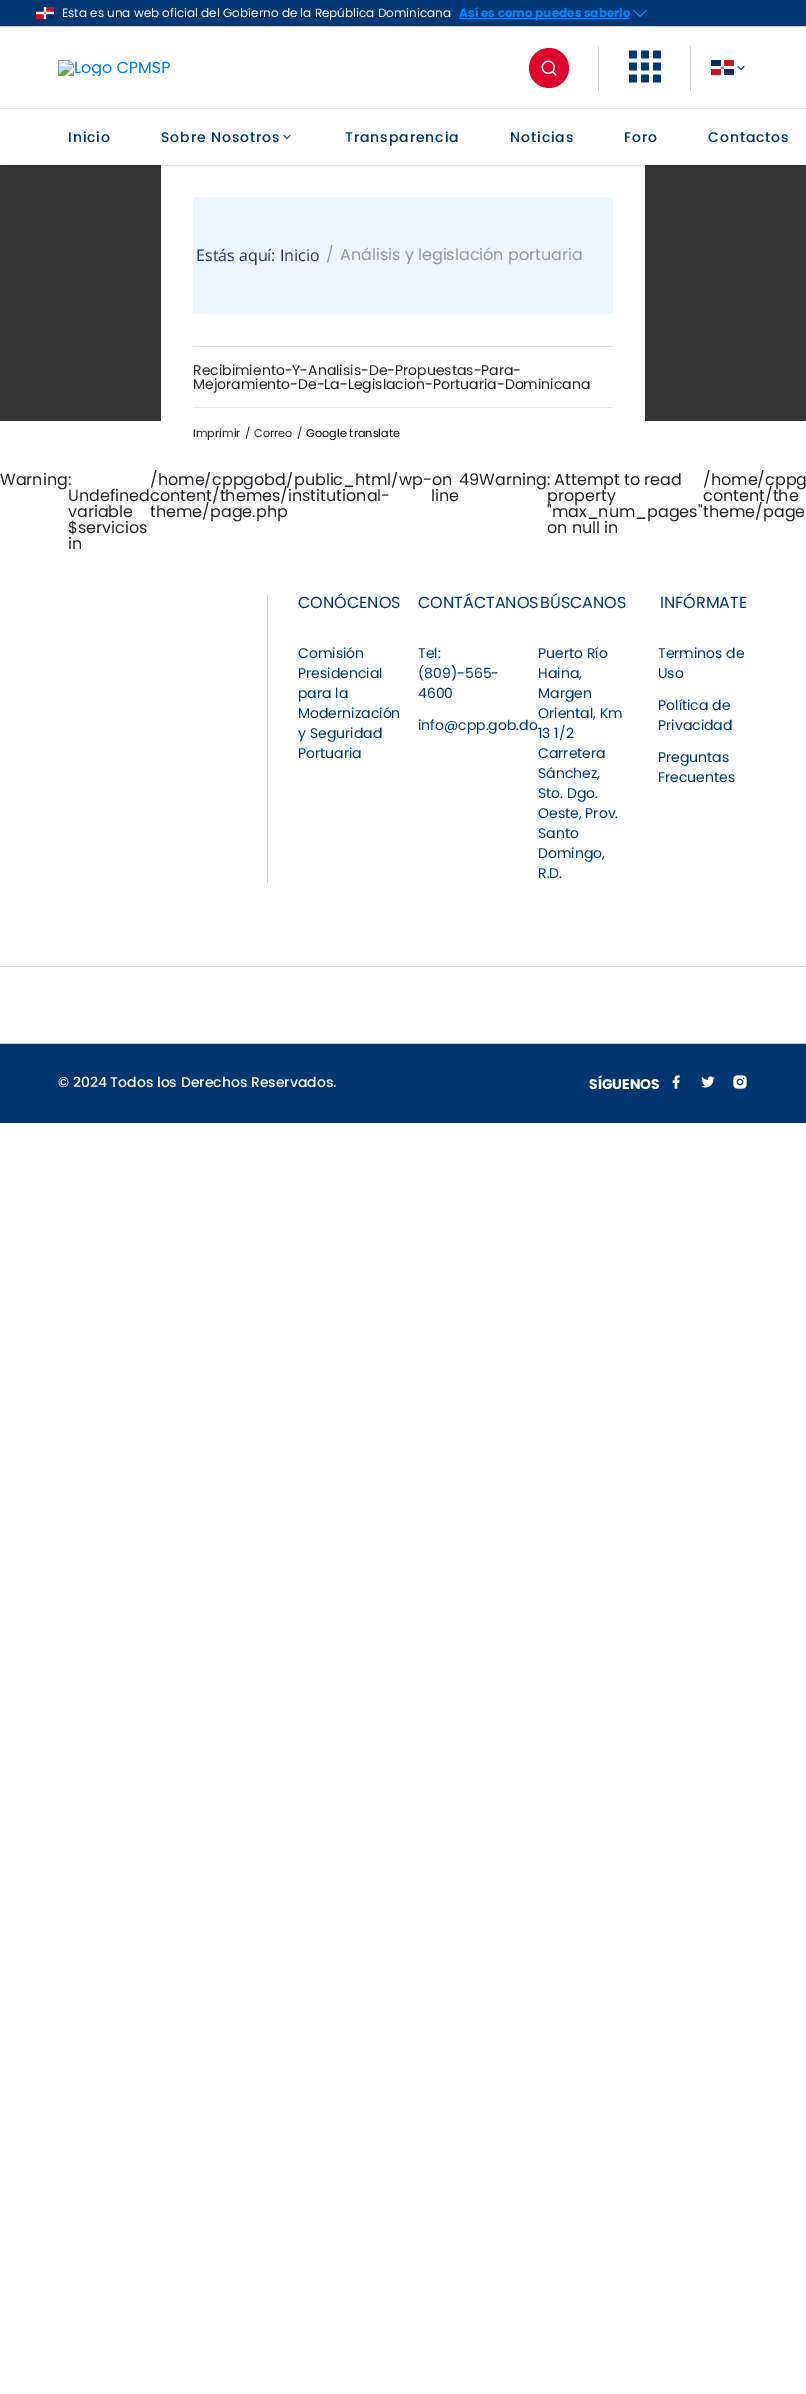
%!PS
<< /PageSize [806 2394] /PageUsesTransparency true >> setpagedevice
/rgb { 3 { 255 div 3 1 roll } repeat setrgbcolor } def
/font { [ exch dup neg 0 0 3 -1 roll 0 0 ] selectfont } def
/alpha { dup .setfillconstantalpha .setstrokeconstantalpha } def
/circle { newpath 0 360 arc closepath } def
/roundrect { 5 dict begin { /r /h /w /y /x } { exch def } forall
  x r add y moveto x w add y 2 copy h add r arct x w add y h add x 1 index r arct
  x y h add x y r arct x y 2 copy exch w add exch r arct closepath end } def
/shadow { 12 dict begin { /a /b /q /h /w /y /x } { exch def } forall gsave /was 0 def
  9 -2 -9 { dup b mul 4 div /e exch def 1 sub .425 mul 2.718 exch exp 1 add a .99 .min exch div /now exch def
    1 1 now sub 1 was sub div sub alpha /was now def
    w h .min e 2 mul add 0 gt { x e sub y e sub w e 2 mul add h e 2 mul add
      q e add b .6 mul add w h .min 2 div e add .min 0 .max roundrect fill } if } for grestore end } def
/picture { 5 dict begin { /h /w /y /x /name } { exch def } forall
  gsave x y translate w h scale
  w h 8 [w 0 0 h 0 0] name (r) file false 3 colorimage grestore end } def
0 .pushpdf14devicefilter
0 2394 translate 1 -1 scale
4 setmiterlimit
255 255 255 rgb
0 0 806 2394 rectfill
0 56 118 rgb
0 0 806 26 rectfill
204 204 204 rgb
0 26 806 1 rectfill
(img/1.rgb) 36 7 18 12 picture
0 135 255 rgb
459 18 171 1 rectfill
0.8 setlinewidth
1 setlinecap
1 setlinejoin
646 10.5 moveto 640 16.5 lineto 634 10.5 lineto stroke
(img/2.rgb) 58 60 112 16 picture
220 5 45 rgb
549 68 20 circle fill
(img/3.rgb) 541 60 16 16 picture
211 211 211 rgb
598 46 1 45 rectfill
(img/4.rgb) 629 50 32 33 picture
690 46 1 45 rectfill
(img/5.rgb) 711 60 23 15 picture
(img/6.rgb) 737 65 8 6 picture
[
  [0 165 806 256 51 51 51]
  [0 966 806 1 211 211 211]
  [267 595 1 288 211 211 211]
  [0 1043 806 1 204 204 204]
  [0 1044 806 79 0 54 112]
] { aload pop rgb rectfill } forall
(img/8.rgb) 672 1075 8 14 picture
(img/9.rgb) 701 1076 14 12 picture
(img/10.rgb) 733 1075 14 14 picture
/Poppins-Regular 12 font
255 255 255 rgb
62 17 moveto (Esta es una web oficial del Gobierno de la República Dominicana) show
/Poppins-Bold 12 font
0 135 255 rgb
459 17 moveto (Así es como puedes saberlo) show
/Poppins-Regular 16 font
33 37 41 rgb
0 485 moveto (Warning:) show
150 485 moveto (/home/cppgobd/public_html/wp-on) show
255 255 255 rgb
161 165 484 307 rectfill
gsave
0 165 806 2 rectclip
0 0 0 rgb
0 110 806 56 0 1.5 0.1 shadow
grestore
gsave
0 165 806 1 rectclip
0 0 0 rgb
0 110 806 56 0 1 0.06 shadow
grestore
235 235 235 rgb
0 108 806 1 rectfill
(img/7.rgb) 283 134 8 6 picture
/Poppins-Medium 14 font
0 54 112 rgb
161 142 moveto 0.9 0 (Sobre Nosotros) ashow
708 142 moveto 0.9 0 (Contactos) ashow
624 142 moveto 0.9 0 (Foro) ashow
510 142 moveto 0.9 0 (Noticias) ashow
345 142 moveto 0.9 0 (Transparencia) ashow
68 142 moveto 0.9 0 (Inicio) ashow
/Poppins-Regular 11.25 font
0 0 0 rgb
306 437 moveto (Google translate) show
33 37 41 rgb
[
  [(/) 297 437]
  [(Correo) 254 437]
  [(/) 245 437]
  [(Imprimir) 193 437]
] { aload pop moveto show } forall
/Poppins-Regular 14 font
193 389 moveto (Mejoramiento-De-La-Legislacion-Portuaria-Dominicana) show
193 375 moveto (Recibimiento-Y-Analisis-De-Propuestas-Para-) show
238 245 255 rgb
193 197 420 117 rectfill
/Poppins-Regular 16 font
153 152 152 rgb
340 260 moveto (Análisis y legislación portuaria) show
326 260 moveto (/) show
/OpenSans-Regular 16 font
34 53 108 rgb
196 261 moveto (Estás aquí: Inicio) show
230 230 230 rgb
193 407 420 1 rectfill
193 346 420 1 rectfill
/Poppins-Regular 16 font
33 37 41 rgb
[
  [(content/themes/institutional-) 150 501]
  [(theme/page.php) 150 517]
  [(49Warning: Attempt to read) 459 485]
  [(/home/cppg) 703 485]
  [(content/the) 703 501]
  [(theme/page) 703 517]
  [(Undefined) 68 501]
  [(line) 431 501]
  [(property) 547 501]
  [(variable) 68 517]
  [("max_num_pages") 547 517]
  [($servicios) 68 533]
  [(on null in) 547 533]
  [(in) 68 549]
] { aload pop moveto show } forall
0 56 118 rgb
298 608 moveto (CONÓCENOS) show
/Poppins-Regular 14 font
[
  [(Comisión) 298 658]
  [(Presidencial) 298 678]
  [(para la) 298 698]
  [(Modernización) 298 718]
  [(y Seguridad) 298 738]
  [(Portuaria) 298 758]
] { aload pop moveto show } forall
/Poppins-Regular 16 font
418 608 moveto (CONTÁCTANOS) show
/Poppins-Regular 14 font
[
  [(Tel:) 418 658]
  [(\(809\)-565-) 418 678]
  [(4600) 418 698]
  [(info@cpp.gob.do) 418 730]
] { aload pop moveto show } forall
/Poppins-Regular 16 font
540 608 moveto (BÚSCANOS) show
/Poppins-Regular 14 font
[
  [(Puerto Río) 538 658]
  [(Haina,) 538 678]
  [(Margen) 538 698]
  [(Oriental, Km) 538 718]
  [(13 1/2) 538 738]
  [(Carretera) 538 758]
  [(Sánchez,) 538 778]
  [(Sto. Dgo.) 538 798]
  [(Oeste, Prov.) 538 818]
  [(Santo) 538 838]
  [(Domingo,) 538 858]
  [(R.D.) 538 878]
] { aload pop moveto show } forall
/Poppins-Regular 16 font
660 608 moveto (INFÓRMATE) show
/Poppins-Regular 14 font
[
  [(Terminos de) 658 658]
  [(Uso) 658 678]
  [(Política de) 658 710]
  [(Privacidad) 658 730]
  [(Preguntas) 658 762]
  [(Frecuentes) 658 782]
] { aload pop moveto show } forall
/Poppins-Medium 14 font
255 255 255 rgb
58 1087 moveto (© 2024 Todos los Derechos Reservados.) show
/Poppins-Bold 14 font
589 1089 moveto (SÍGUENOS) show
.poppdf14devicefilter showpage
